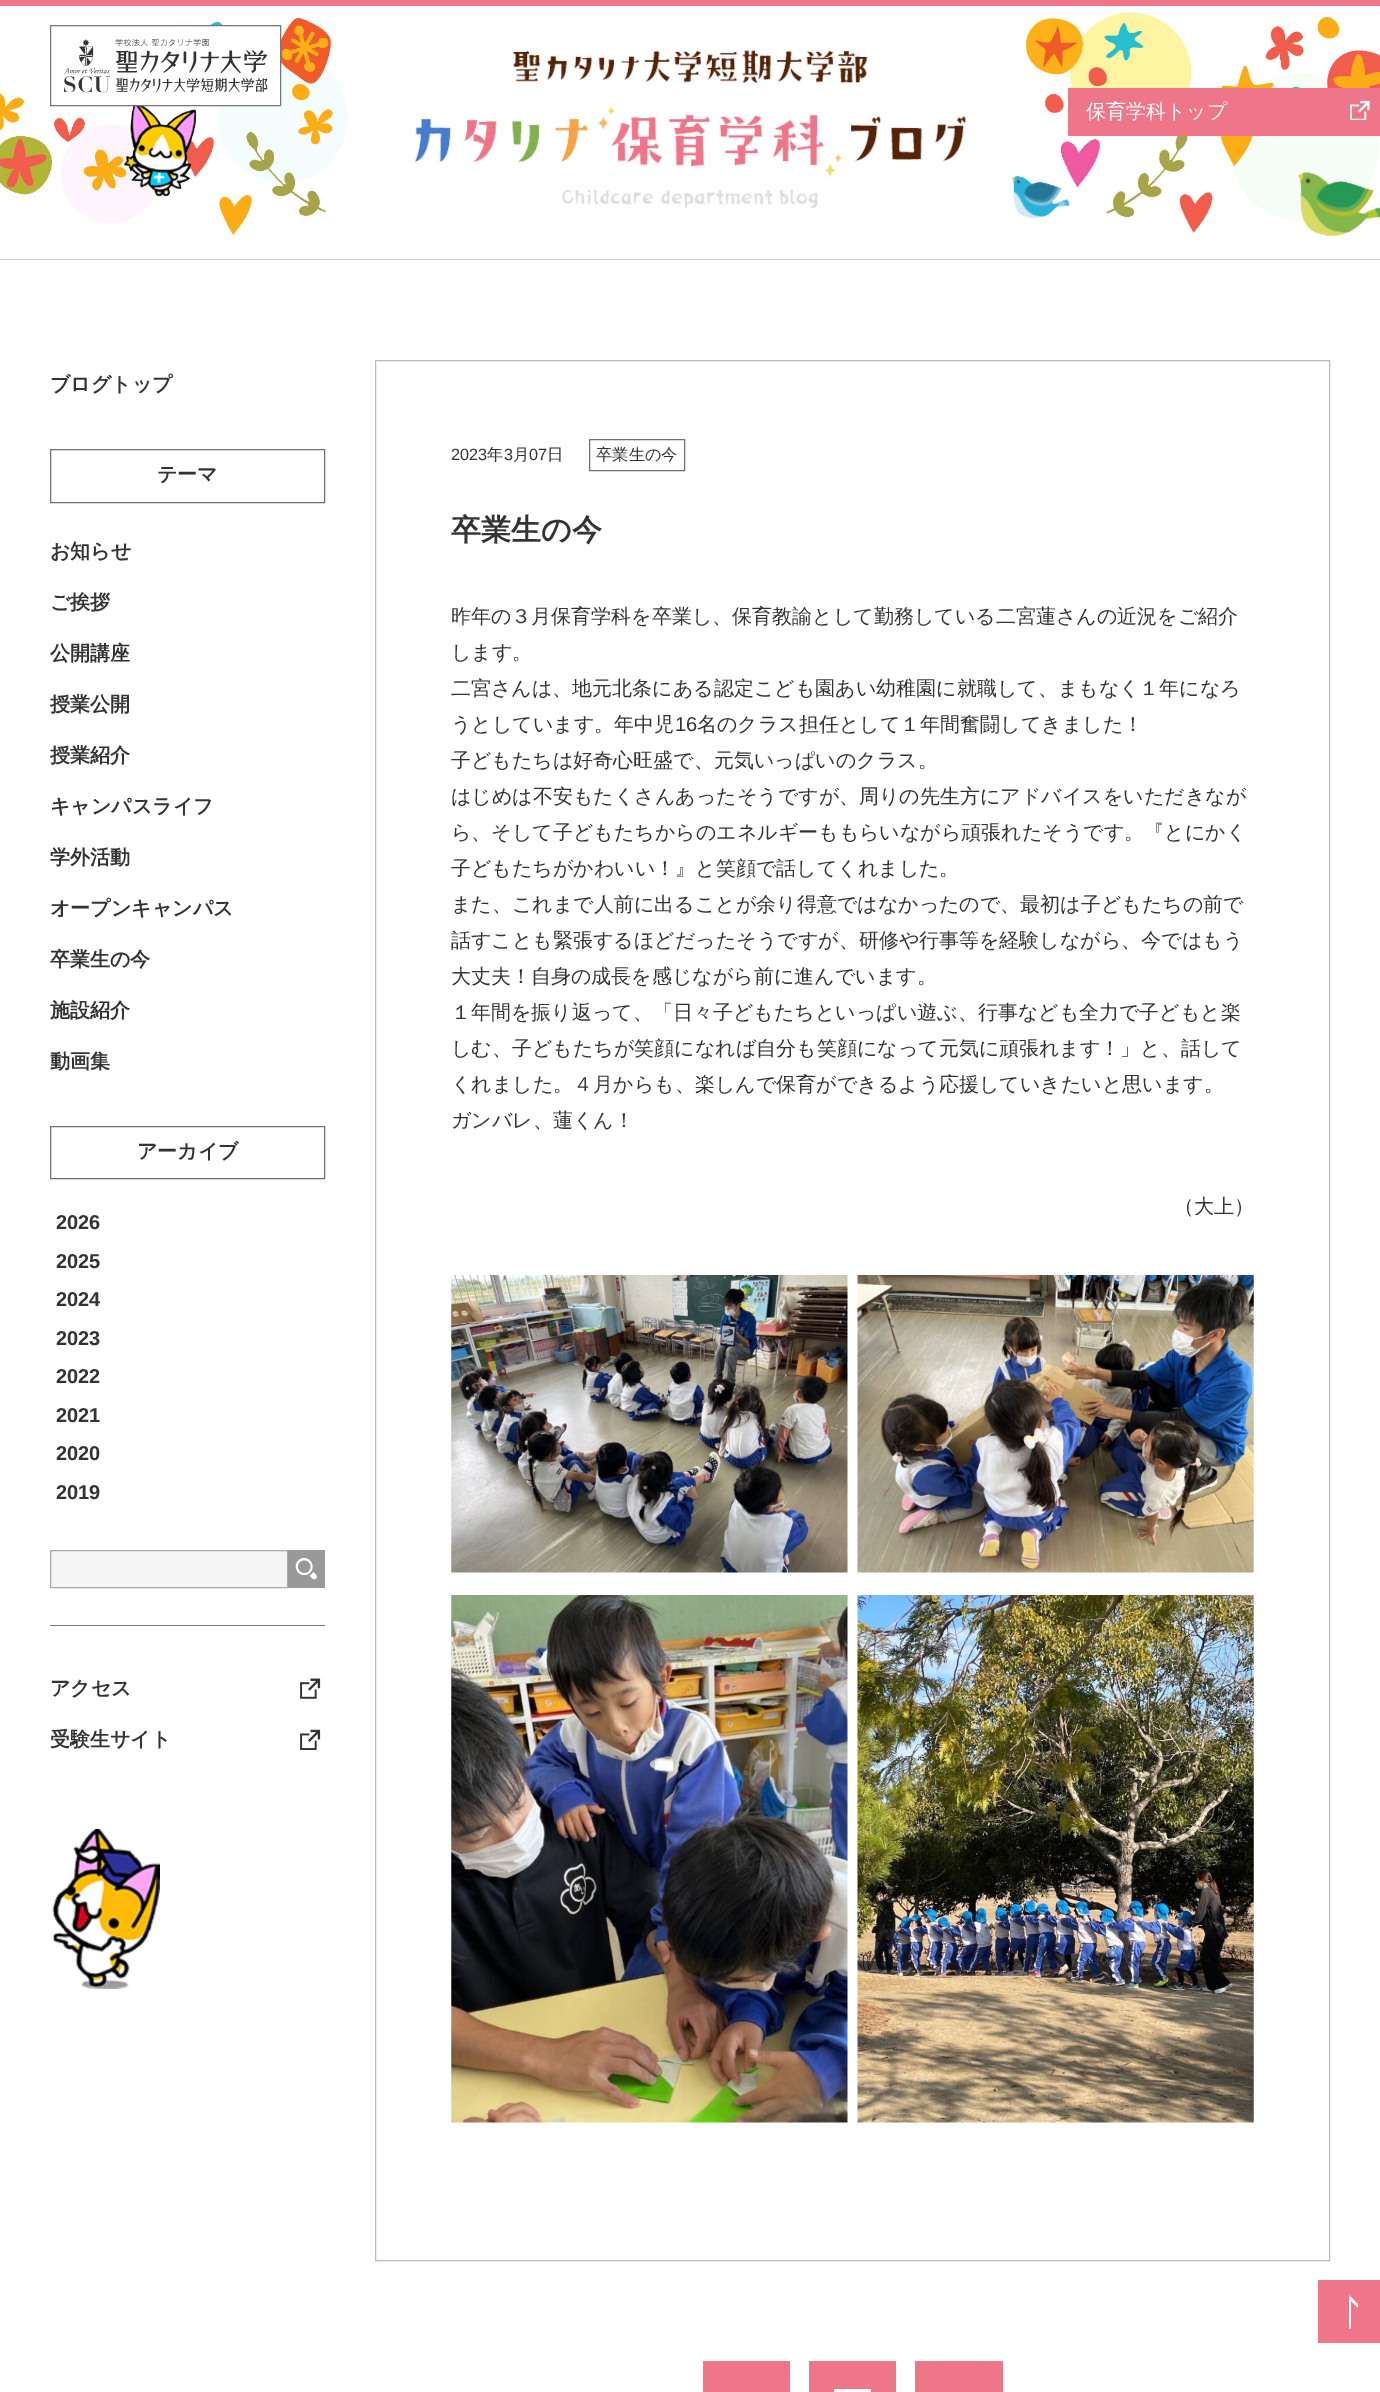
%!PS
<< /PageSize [1380 2392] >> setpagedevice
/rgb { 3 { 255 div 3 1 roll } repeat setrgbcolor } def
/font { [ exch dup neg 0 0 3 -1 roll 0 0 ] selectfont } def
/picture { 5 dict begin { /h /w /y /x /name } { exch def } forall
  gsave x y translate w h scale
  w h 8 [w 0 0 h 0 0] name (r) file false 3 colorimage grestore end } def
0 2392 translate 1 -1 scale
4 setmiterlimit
255 255 255 rgb
0 0 1380 2392 rectfill
(img/1.rgb) 0 12 1380 226 picture
[
  [0 259 1380 1 204 204 204]
  [0 0 1380 6 239 117 137]
  [133 26 147 79 255 255 255]
] { aload pop rgb rectfill } forall
119 119 119 rgb
50.5 25.5 230 80 rectstroke
(img/2.rgb) 64 39 204 54 picture
(img/3.rgb) 414 50 553 159 picture
239 117 137 rgb
1068 88 312 48 rectfill
(img/4.rgb) 1350 100 20 20 picture
112 112 112 rgb
50.5 449.5 274 53 rectstroke
50.5 1126.5 274 52 rectstroke
245 245 245 rgb
50.5 1550.5 moveto 287.5 1550.5 lineto 287.5 1587.5 lineto 50.5 1587.5 lineto closepath gsave fill grestore
170 170 170 rgb
stroke
153 153 153 rgb
288 1550 37 38 rectfill
(img/5.rgb) 295 1558 22 22 picture
119 119 119 rgb
50 1625 275 1 rectfill
(img/6.rgb) 300 1678 21 21 picture
(img/7.rgb) 300 1729 21 21 picture
(img/8.rgb) 52 1828 109 161 picture
187 187 187 rgb
375.5 360.5 954 1900 rectstroke
112 112 112 rgb
589.5 439.5 95 31 rectstroke
(img/9.rgb) 451 1275 397 298 picture
(img/10.rgb) 857 1275 397 298 picture
(img/11.rgb) 451 1595 397 528 picture
(img/12.rgb) 857 1595 397 528 picture
[
  [703 2361 87 31 239 117 137]
  [809 2361 87 31 239 117 137]
  [834 2389 37 3 255 255 255]
  [915 2361 88 31 239 117 137]
  [1318 2280 62 63 239 117 137]
] { aload pop rgb rectfill } forall
255 255 255 rgb
1351 2328.5 moveto 1351 2301 lineto 1358 2308 lineto 1358 2304.5 lineto 1349 2295 lineto 1349 2328.5 lineto closepath fill
/WenQuanYiZenHei-Medium 20 font
1086 118 moveto (保育学科トップ) show
/WenQuanYiZenHei-Bold 20 font
51 51 51 rgb
[
  [(ブログトップ) 50 391]
  [(テーマ) 157 481]
  [(お知らせ) 50 558]
  [(ご挨拶) 50 609]
  [(公開講座) 50 660]
  [(授業公開) 50 711]
  [(授業紹介) 50 762]
  [(キャンパスライフ) 50 813]
  [(学外活動) 50 864]
  [(オープンキャンパス) 50 915]
  [(卒業生の今) 50 966]
  [(施設紹介) 50 1017]
  [(動画集) 50 1068]
  [(アーカイブ) 137 1158]
] { aload pop moveto show } forall
/LiberationSans-Bold 20 font
[
  [(2026) 56 1229]
  [(2025) 56 1268]
  [(2024) 56 1306]
  [(2023) 56 1345]
  [(2022) 56 1383]
  [(2021) 56 1422]
  [(2020) 56 1460]
  [(2019) 56 1499]
] { aload pop moveto show } forall
/WenQuanYiZenHei-Bold 20 font
50 1695 moveto (アクセス) show
50 1746 moveto (受験生サイト) show
/LiberationSans-Regular 16.25 font
451 460 moveto (2023) show
/WenQuanYiZenHei-Medium 16.25 font
487 460 moveto (年) show
/LiberationSans-Regular 16.25 font
504 460 moveto (3) show
/WenQuanYiZenHei-Medium 16.25 font
513 460 moveto (月) show
/LiberationSans-Regular 16.25 font
529 460 moveto (07) show
/WenQuanYiZenHei-Medium 16.25 font
547 460 moveto (日) show
596 460 moveto (卒業生の今) show
/WenQuanYiZenHei-Bold 30 font
451 540 moveto (卒業生の今) show
/WenQuanYiZenHei-Medium 20 font
[
  [(昨年の３月保育学科を卒業し、保育教諭として勤務している二宮蓮さんの近況をご紹介) 451 623]
  [(します。) 451 659]
  [(二宮さんは、地元北条にある認定こども園あい幼稚園に就職して、まもなく１年になろ) 451 695]
  [(うとしています。年中児) 451 731]
] { aload pop moveto show } forall
/LiberationSans-Regular 20 font
675 731 moveto (16) show
/WenQuanYiZenHei-Medium 20 font
[
  [(名のクラス担任として１年間奮闘してきました！) 697 731]
  [(子どもたちは好奇心旺盛で、元気いっぱいのクラス。) 451 767]
  [(はじめは不安もたくさんあったそうですが、周りの先生方にアドバイスをいただきなが) 451 803]
  [(ら、そして子どもたちからのエネルギーももらいながら頑張れたそうです。『とにかく) 451 839]
  [(子どもたちがかわいい！』と笑顔で話してくれました。) 451 875]
  [(また、これまで人前に出ることが余り得意ではなかったので、最初は子どもたちの前で) 451 911]
  [(話すことも緊張するほどだったそうですが、研修や行事等を経験しながら、今ではもう) 451 947]
  [(大丈夫！自身の成長を感じながら前に進んでいます。) 451 983]
  [(１年間を振り返って、「日々子どもたちといっぱい遊ぶ、行事なども全力で子どもと楽) 451 1019]
  [(しむ、子どもたちが笑顔になれば自分も笑顔になって元気に頑張れます！」と、話して) 451 1055]
  [(くれました。４月からも、楽しんで保育ができるよう応援していきたいと思います。) 451 1091]
  [(ガンバレ、蓮くん！) 451 1127]
  [(（大上）) 1174 1213]
] { aload pop moveto show } forall
showpage
